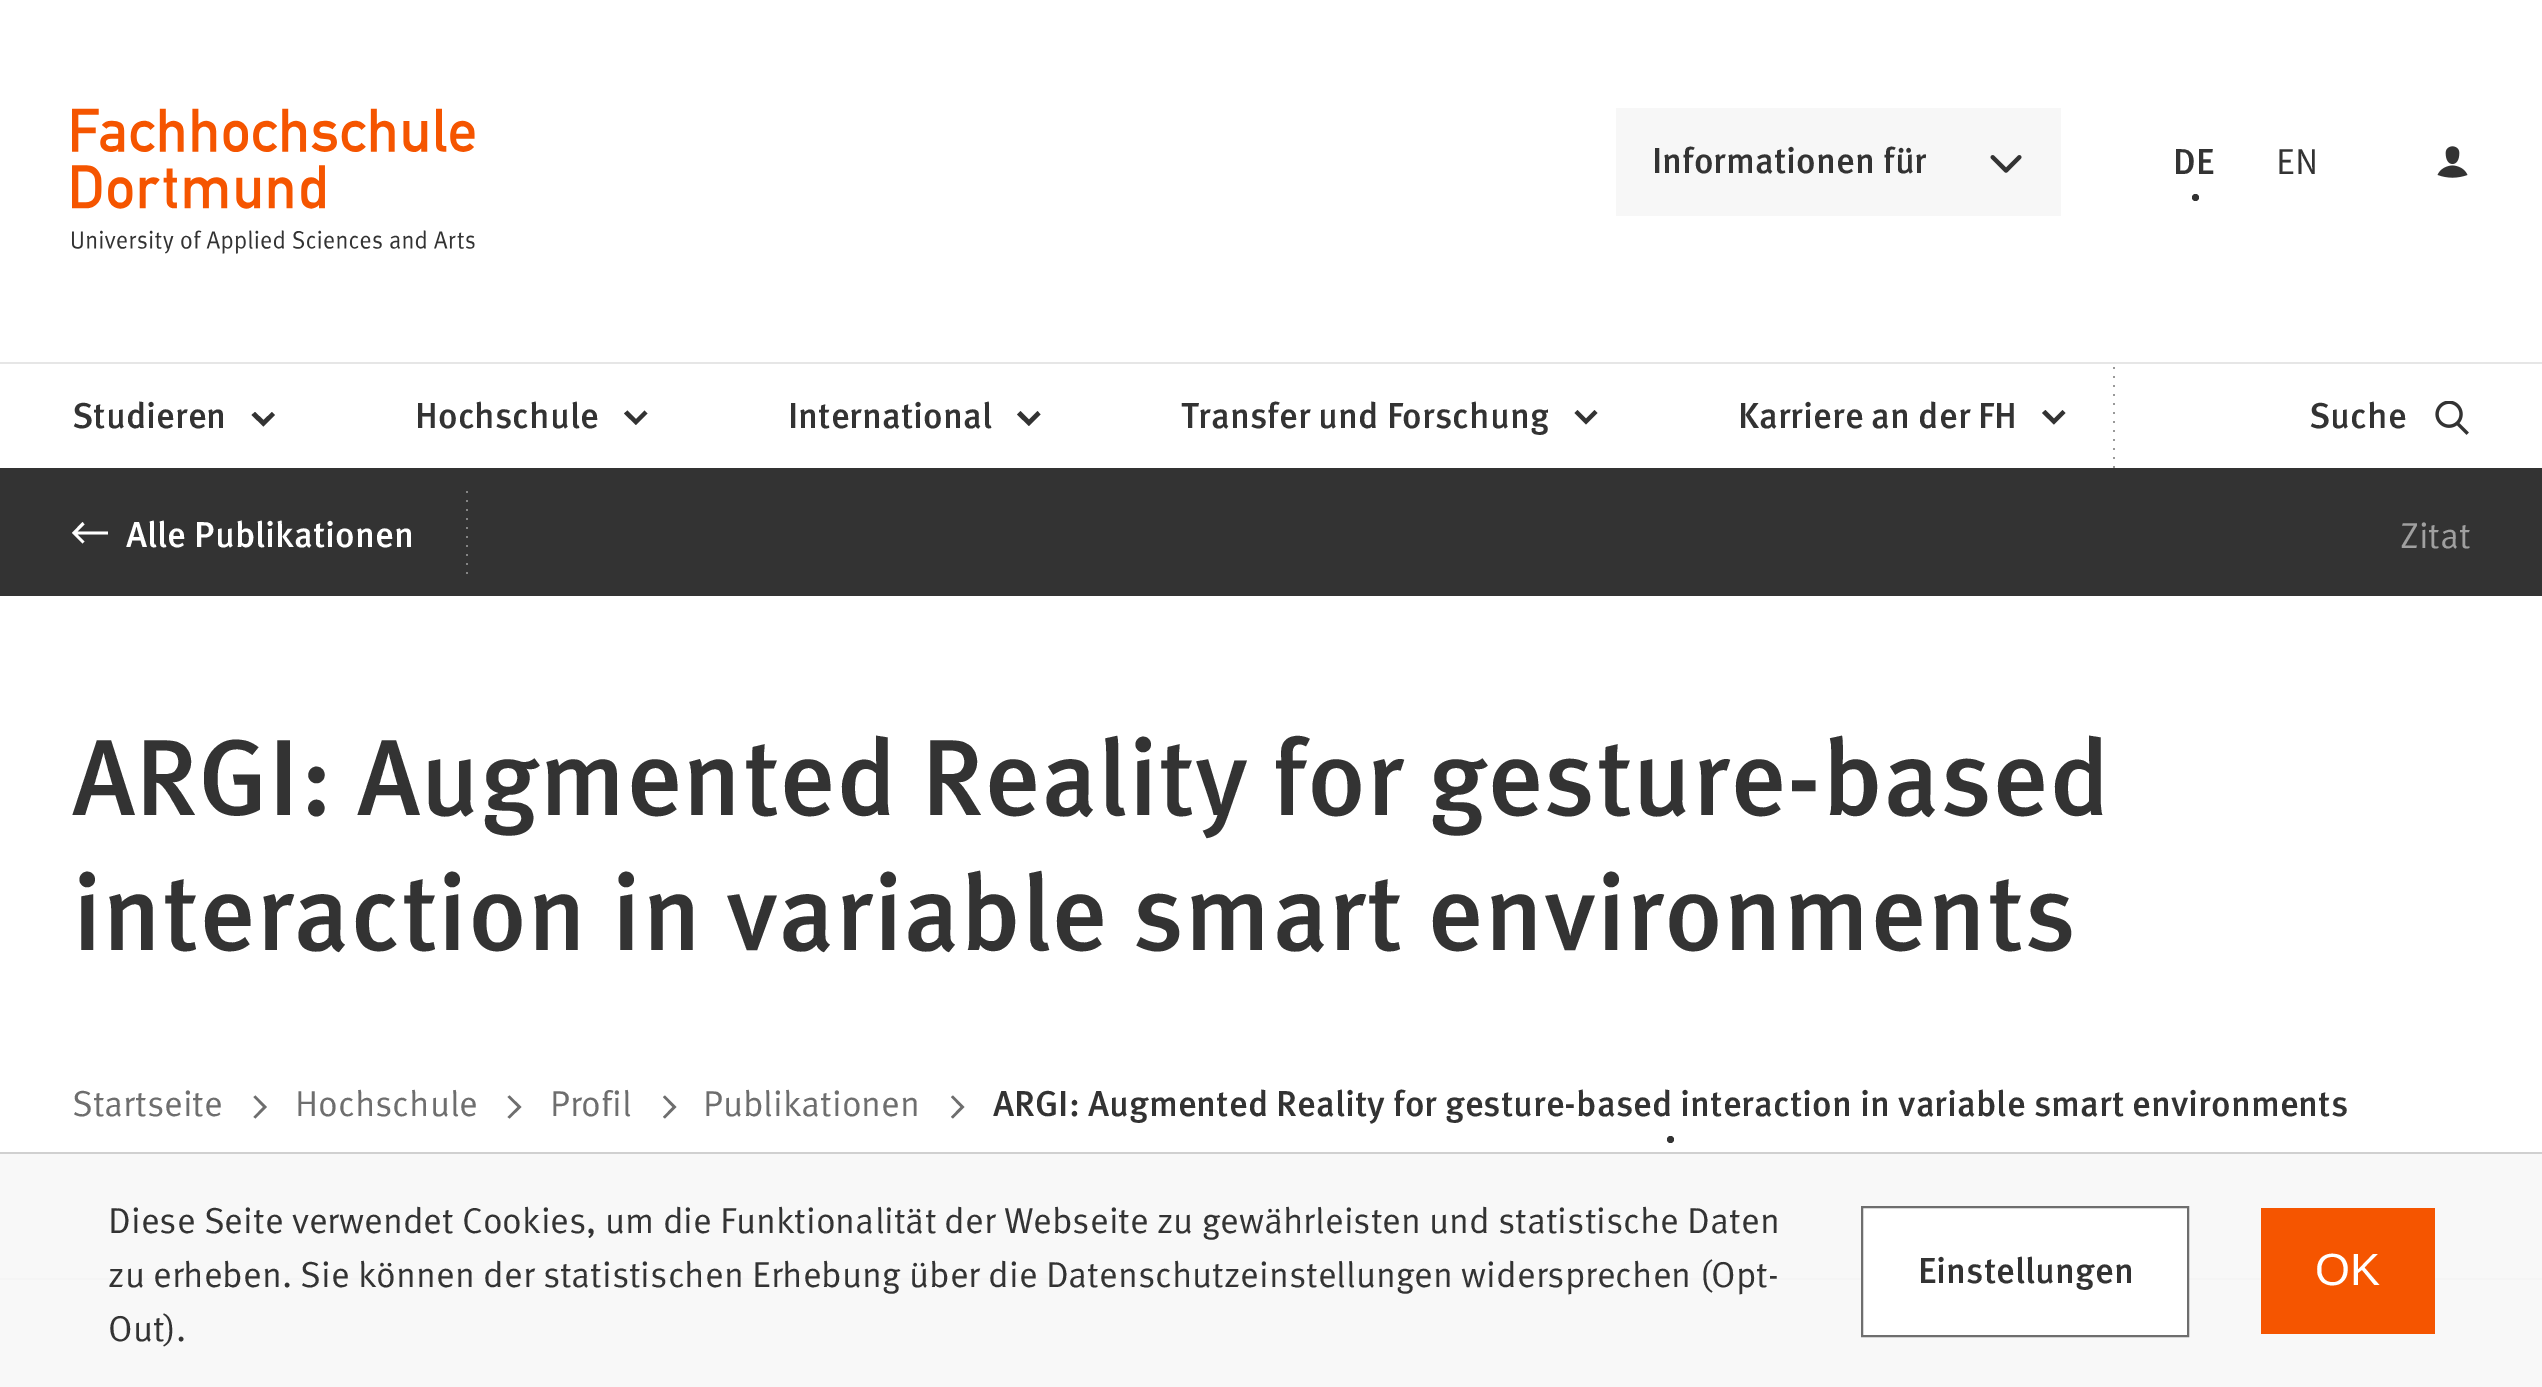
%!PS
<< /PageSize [2542 1387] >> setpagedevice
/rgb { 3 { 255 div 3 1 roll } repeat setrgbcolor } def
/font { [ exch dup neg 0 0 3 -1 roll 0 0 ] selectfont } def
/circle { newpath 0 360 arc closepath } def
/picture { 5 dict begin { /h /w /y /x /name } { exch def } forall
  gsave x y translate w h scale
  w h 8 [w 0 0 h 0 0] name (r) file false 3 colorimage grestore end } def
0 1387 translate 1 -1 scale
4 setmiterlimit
255 255 255 rgb
0 0 2542 1387 rectfill
(img/1.rgb) 72 108 403 146 picture
247 247 247 rgb
1616 108 445 108 rectfill
(img/2.rgb) 1990 155 32 18 picture
51 51 51 rgb
2195.5 197.5 3.5 circle fill
(img/3.rgb) 2437 146 31 32 picture
230 230 230 rgb
0 362 2542 2 rectfill
51 51 51 rgb
263.5 426.5 moveto 275 415 lineto 272 412 lineto 263.5 420 lineto 255 412 lineto 251.5 415 lineto closepath fill
636 425 moveto 647.5 413.5 lineto 644.5 410.5 lineto 636 419 lineto 627.5 410.5 lineto 624 413.5 lineto closepath fill
1029 426 moveto 1040.5 414.5 lineto 1037.5 411 lineto 1029 419.5 lineto 1020.5 411 lineto 1017 414.5 lineto closepath fill
1586 424.5 moveto 1597.5 413 lineto 1594.5 410 lineto 1586 418.5 lineto 1577.5 410 lineto 1574.5 413 lineto closepath fill
2054 424.5 moveto 2065.5 413 lineto 2062.5 410 lineto 2054 418.5 lineto 2045.5 410 lineto 2042 413 lineto closepath fill
[
  [2113 367 2 2 153 153 153]
  [2113 376 2 2 153 153 153]
  [2113 385 2 2 153 153 153]
  [2113 394 2 2 153 153 153]
  [2113 403 2 2 153 153 153]
  [2113 412 2 2 153 153 153]
  [2113 421 2 2 153 153 153]
  [2113 430 2 2 153 153 153]
  [2113 439 2 2 153 153 153]
  [2113 448 2 2 153 153 153]
  [2113 457 2 2 153 153 153]
  [2113 466 2 2 153 153 153]
] { aload pop rgb rectfill } forall
(img/4.rgb) 2435 401 34 34 picture
51 51 51 rgb
0 468 2542 128 rectfill
255 255 255 rgb
82.5 522 moveto 84.5 524.5 lineto 77.5 531.5 lineto 108 531.5 lineto 108 534.5 lineto 77.5 534.5 lineto 84.5 541.5 lineto 82.5 543.5 lineto 72 533 lineto closepath fill
[
  [466 491 2 2 133 133 133]
  [466 500 2 2 133 133 133]
  [466 509 2 2 133 133 133]
  [466 518 2 2 133 133 133]
  [466 527 2 2 133 133 133]
  [466 536 2 2 133 133 133]
  [466 545 2 2 133 133 133]
  [466 554 2 2 133 133 133]
  [466 563 2 2 133 133 133]
  [466 572 2 2 133 133 133]
] { aload pop rgb rectfill } forall
110 110 110 rgb
255.5 1095.5 moveto 267 1107 lineto 255.5 1118.5 lineto 253.5 1117 lineto 263 1107 lineto 253.5 1097 lineto closepath fill
509.5 1095.5 moveto 521.5 1107 lineto 509.5 1118.5 lineto 507.5 1117 lineto 517.5 1107 lineto 507.5 1097 lineto closepath fill
665 1095.5 moveto 676.5 1107 lineto 665 1118.5 lineto 663 1117 lineto 672.5 1107 lineto 663 1097 lineto closepath fill
953 1095.5 moveto 964.5 1107 lineto 953 1118.5 lineto 951 1117 lineto 960.5 1107 lineto 951 1097 lineto closepath fill
51 51 51 rgb
1670.5 1139.5 3.5 circle fill
[
  [0 1154 2542 233 248 248 248]
  [0 1278 2542 2 245 245 245]
  [0 1152 2542 2 208 208 208]
] { aload pop rgb rectfill } forall
255 255 255 rgb
1862 1207 moveto 2188 1207 lineto 2188 1336 lineto 1862 1336 lineto closepath gsave fill grestore
110 110 110 rgb
2 setlinewidth
stroke
245 85 0 rgb
2261 1208 174 126 rectfill
gsave
1652 137 274 45 rectclip
/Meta-Medium 36 font
51 51 51 rgb
1652 173 moveto (Informationen für) show
grestore
/Meta-Medium 36 font
51 51 51 rgb
2173 174 moveto (DE) show
/Meta-Regular 36 font
2276 174 moveto (EN) show
/Meta-Medium 36 font
[
  [(Studieren) 72 428]
  [(Hochschule) 415 428]
  [(International) 788 428]
] { aload pop moveto show } forall
gsave
1181 392 367 45 rectclip
1181 428 moveto (Transfer und Forschung) show
grestore
1738 428 moveto (Karriere an der FH) show
2309 428 moveto (Suche) show
255 255 255 rgb
126 547 moveto (Alle Publikationen) show
/Meta-Regular 36 font
160 160 160 rgb
2400 548 moveto (Zitat) show
/Meta-Medium 108 font
51 51 51 rgb
72 815 moveto (ARGI: Augmented Reality for gesture-based) show
72 950 moveto (interaction in variable smart environments) show
/Meta-Regular 36 font
110 110 110 rgb
[
  [(Startseite) 72 1116]
  [(Hochschule) 295 1116]
  [(Profil) 550 1116]
  [(Publikationen) 703 1116]
] { aload pop moveto show } forall
/Meta-Medium 36 font
51 51 51 rgb
993 1116 moveto (ARGI: Augmented Reality for gesture-based interaction in variable smart environments) show
/Meta-Regular 36 font
[
  [(Diese Seite verwendet Cookies, um die Funktionalität der Webseite zu gewährleisten und statistische Daten) 108 1233]
  [(zu erheben. Sie können der statistischen Erhebung über die Datenschutzeinstellungen widersprechen \(Opt-) 108 1287]
  [(Out\).) 108 1341]
] { aload pop moveto show } forall
/Meta-Medium 36 font
1918 1283 moveto (Einstellungen) show
/LiberationSans-Regular 45 font
255 255 255 rgb
2315 1285 moveto (OK) show
showpage
